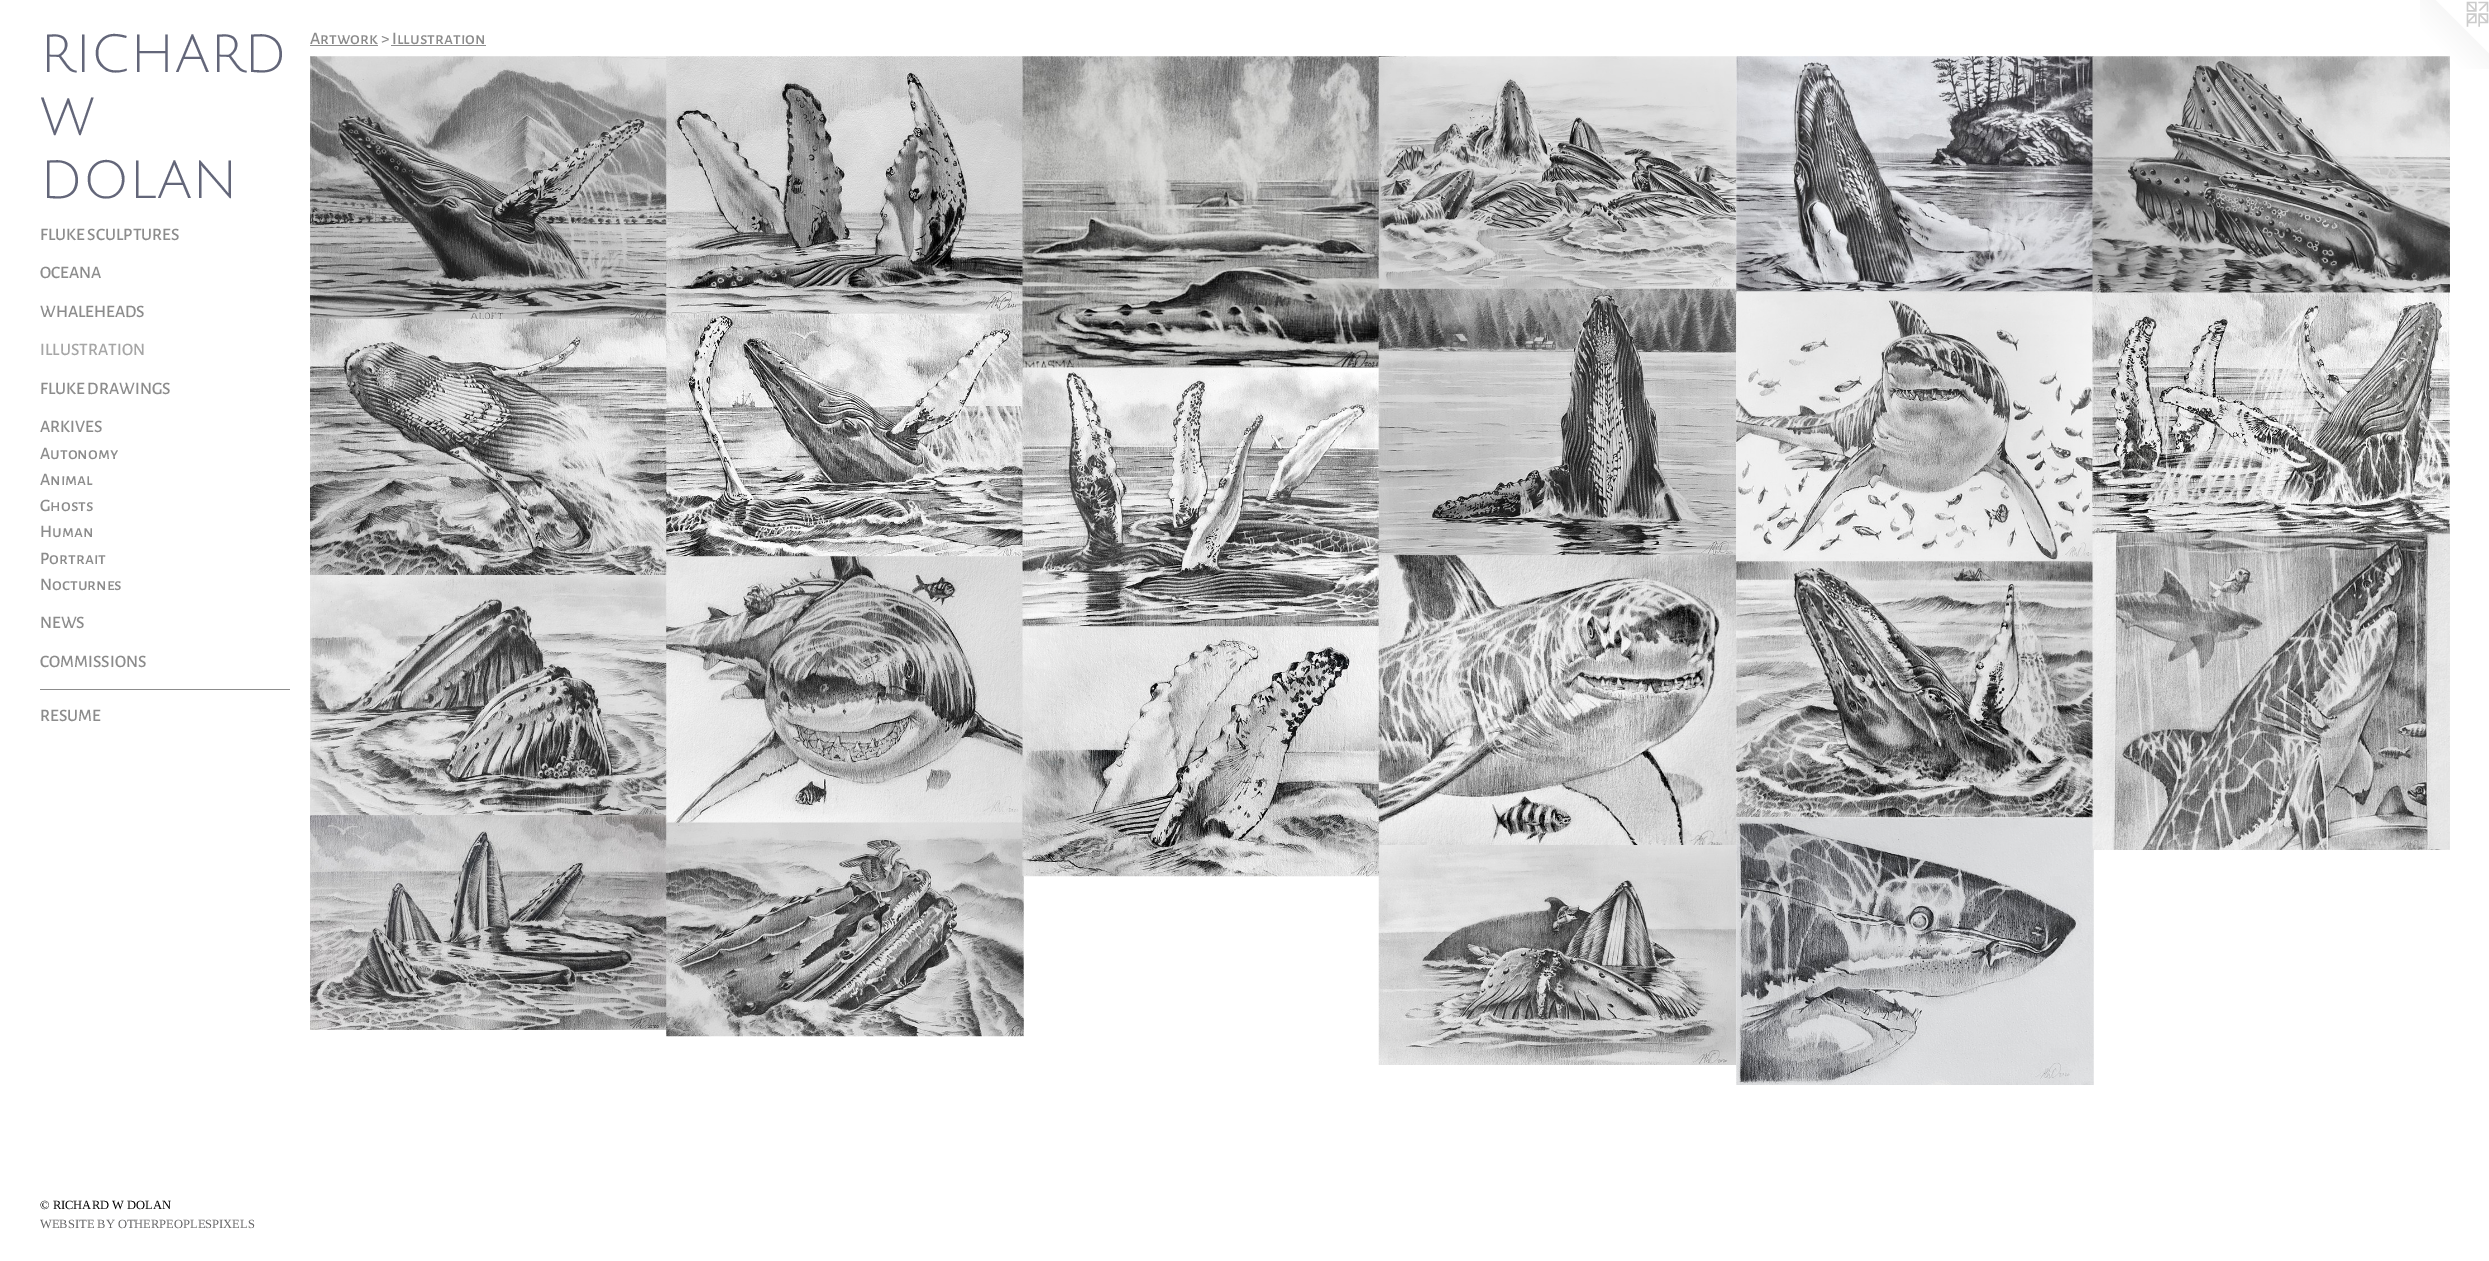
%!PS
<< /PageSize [2489 1261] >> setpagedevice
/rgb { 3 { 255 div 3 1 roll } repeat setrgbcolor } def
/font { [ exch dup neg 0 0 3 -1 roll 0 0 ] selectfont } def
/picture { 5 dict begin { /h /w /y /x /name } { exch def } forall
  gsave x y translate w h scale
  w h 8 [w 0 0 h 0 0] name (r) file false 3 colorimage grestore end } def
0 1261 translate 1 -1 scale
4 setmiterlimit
255 255 255 rgb
0 0 2489 1261 rectfill
[
  [40 689 250 1 140 140 140]
  [310 45 68 1 140 140 140]
  [391 45 95 1 140 140 140]
] { aload pop rgb rectfill } forall
(img/1.rgb) 310 56 358 263 picture
(img/2.rgb) 666 56 358 261 picture
(img/7.rgb) 310 318 357 257 picture
(img/8.rgb) 666 313 357 245 picture
(img/3.rgb) 1022 56 358 314 picture
(img/4.rgb) 1378 56 359 234 picture
(img/13.rgb) 310 575 357 240 picture
(img/19.rgb) 310 815 357 215 picture
(img/14.rgb) 666 556 357 268 picture
(img/9.rgb) 1022 367 357 261 picture
(img/10.rgb) 1378 288 359 269 picture
(img/5.rgb) 1736 56 358 238 picture
(img/20.rgb) 666 822 358 215 picture
(img/15.rgb) 1022 626 357 251 picture
(img/16.rgb) 1378 555 359 292 picture
(img/11.rgb) 1736 291 357 272 picture
(img/23.rgb) 2420 0 69 69 picture
(img/6.rgb) 2092 56 358 238 picture
(img/12.rgb) 2092 292 358 243 picture
(img/17.rgb) 1736 561 357 257 picture
(img/21.rgb) 1378 845 359 220 picture
(img/22.rgb) 1736 817 358 268 picture
(img/18.rgb) 2092 532 358 318 picture
/JuliusSansOne-Regular 52.5 font
99 102 121 rgb
[
  [(RICHARD) 40 72]
  [(W) 40 135]
  [(DOLAN) 40 198]
] { aload pop moveto show } forall
/AlegreyaSansSC-Medium 17.5 font
140 140 140 rgb
[
  [(FLUKE SCULPTURES) 40 240]
  [(OCEANA) 40 278]
  [(WHALEHEADS) 40 317]
] { aload pop moveto show } forall
166 166 166 rgb
40 355 moveto (ILLUSTRATION) show
140 140 140 rgb
[
  [(FLUKE DRAWINGS) 40 394]
  [(ARKIVES) 40 432]
  [(Autonomy) 40 459]
  [(Animal) 40 485]
  [(Ghosts) 40 511]
  [(Human) 40 537]
  [(Portrait) 40 564]
  [(Nocturnes) 40 590]
  [(NEWS) 40 628]
  [(COMMISSIONS) 40 667]
  [(RESUME) 40 721]
] { aload pop moveto show } forall
/LiberationSerif-Regular 12.5 font
0 0 0 rgb
40 1209 moveto (© RICHARD W DOLAN) show
100 100 101 rgb
40 1228 moveto (WEBSITE BY OTHERPEOPLESPIXELS) show
/AlegreyaSansSC-Medium 17.5 font
140 140 140 rgb
310 44 moveto (Artwork > Illustration) show
showpage
